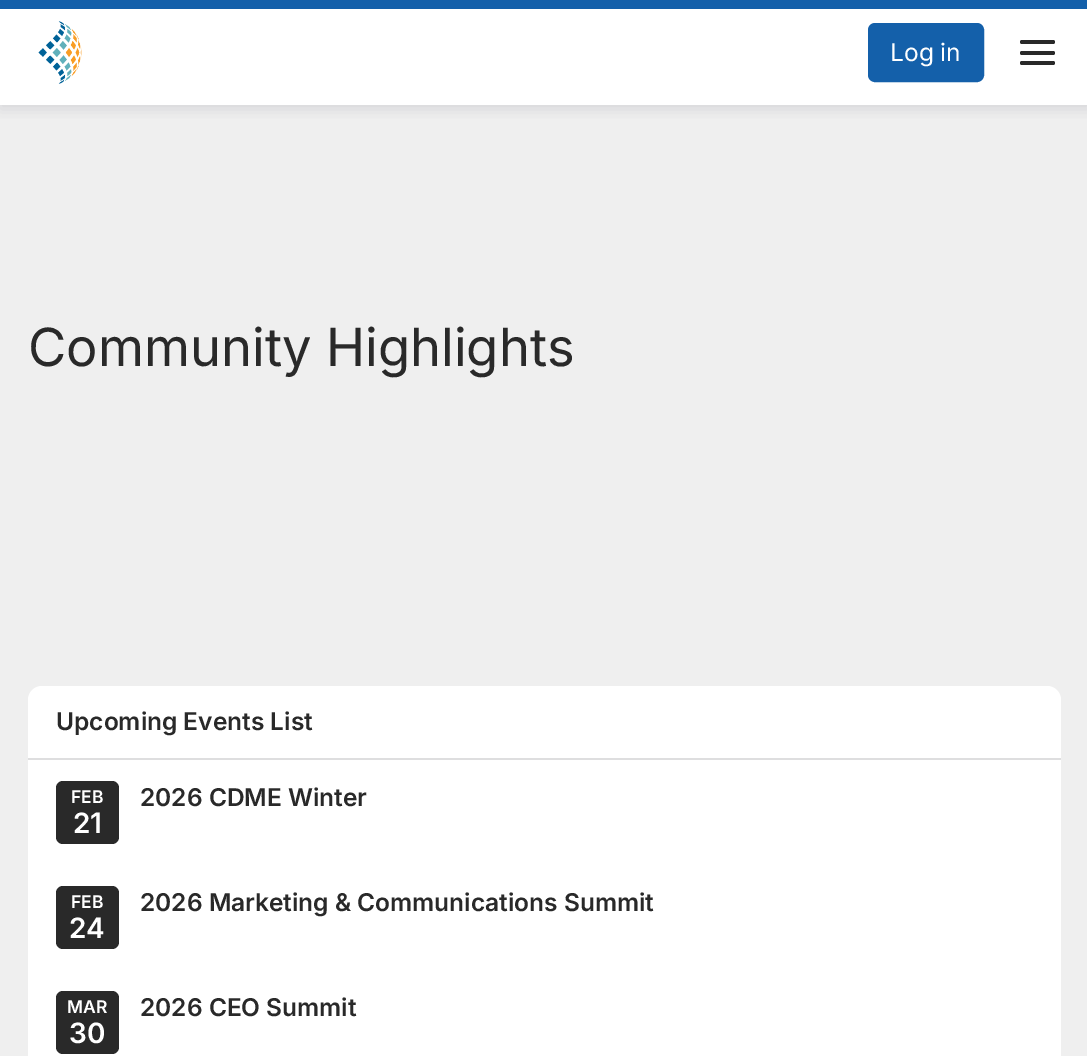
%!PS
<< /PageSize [1087 1056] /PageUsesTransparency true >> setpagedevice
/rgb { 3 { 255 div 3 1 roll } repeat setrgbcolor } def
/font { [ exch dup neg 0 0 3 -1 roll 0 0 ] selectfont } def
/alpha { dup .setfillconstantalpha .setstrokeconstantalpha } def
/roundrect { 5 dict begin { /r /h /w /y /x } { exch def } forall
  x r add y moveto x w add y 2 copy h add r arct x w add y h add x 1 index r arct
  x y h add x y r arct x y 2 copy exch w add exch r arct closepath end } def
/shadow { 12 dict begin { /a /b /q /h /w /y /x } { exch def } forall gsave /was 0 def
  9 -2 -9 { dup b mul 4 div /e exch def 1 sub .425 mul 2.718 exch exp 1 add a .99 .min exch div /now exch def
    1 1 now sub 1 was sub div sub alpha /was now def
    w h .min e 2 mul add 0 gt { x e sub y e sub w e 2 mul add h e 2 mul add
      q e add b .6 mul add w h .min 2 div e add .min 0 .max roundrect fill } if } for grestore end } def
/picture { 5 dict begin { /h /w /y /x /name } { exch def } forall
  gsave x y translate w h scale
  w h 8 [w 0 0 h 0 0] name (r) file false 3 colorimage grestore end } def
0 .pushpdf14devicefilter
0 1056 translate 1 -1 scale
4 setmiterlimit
239 239 239 rgb
0 0 1087 1056 rectfill
255 255 255 rgb
0 9 1087 96 rectfill
gsave
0 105 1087 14 rectclip
131 135 145 rgb
0 4 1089 105 0 7 0.24 shadow
grestore
20 96 170 rgb
0 0 1087 9 rectfill
(img/1.rgb) 38 21 44 63 picture
869 24 114 57 6 roundrect gsave fill grestore
2 setlinewidth
stroke
41 41 41 rgb
1020 40 35 4 2 roundrect fill
1020 51 35 4 2 roundrect fill
1020 61 35 4 2 roundrect fill
255 255 255 rgb
28 686 1033 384 14 roundrect fill
222 222 223 rgb
28 758 1033 2 rectfill
41 41 41 rgb
56 781 63 63 7 roundrect fill
56 886 63 63 7 roundrect fill
56 991 63 63 7 roundrect fill
/Inter-Regular 24.5 font
255 255 255 rgb
890 61 moveto (Log in) show
/Inter-Regular 52.5 font
41 41 41 rgb
28 366 moveto (Community Highlights) show
/Inter-SemiBold 24.5 font
56 730 moveto (Upcoming Events List) show
/Inter-SemiBold 17.5 font
255 255 255 rgb
71 803 moveto (FEB) show
/Inter-SemiBold 28 font
73 833 moveto (21) show
/Inter-SemiBold 24.5 font
41 41 41 rgb
140 806 moveto (2026 CDME Winter) show
/Inter-SemiBold 17.5 font
255 255 255 rgb
71 908 moveto (FEB) show
/Inter-SemiBold 28 font
69 938 moveto (24) show
/Inter-SemiBold 24.5 font
41 41 41 rgb
140 911 moveto (2026 Marketing & Communications Summit) show
/Inter-SemiBold 17.5 font
255 255 255 rgb
67 1013 moveto (MAR) show
/Inter-SemiBold 28 font
69 1043 moveto (30) show
/Inter-SemiBold 24.5 font
41 41 41 rgb
140 1016 moveto (2026 CEO Summit) show
.poppdf14devicefilter showpage
